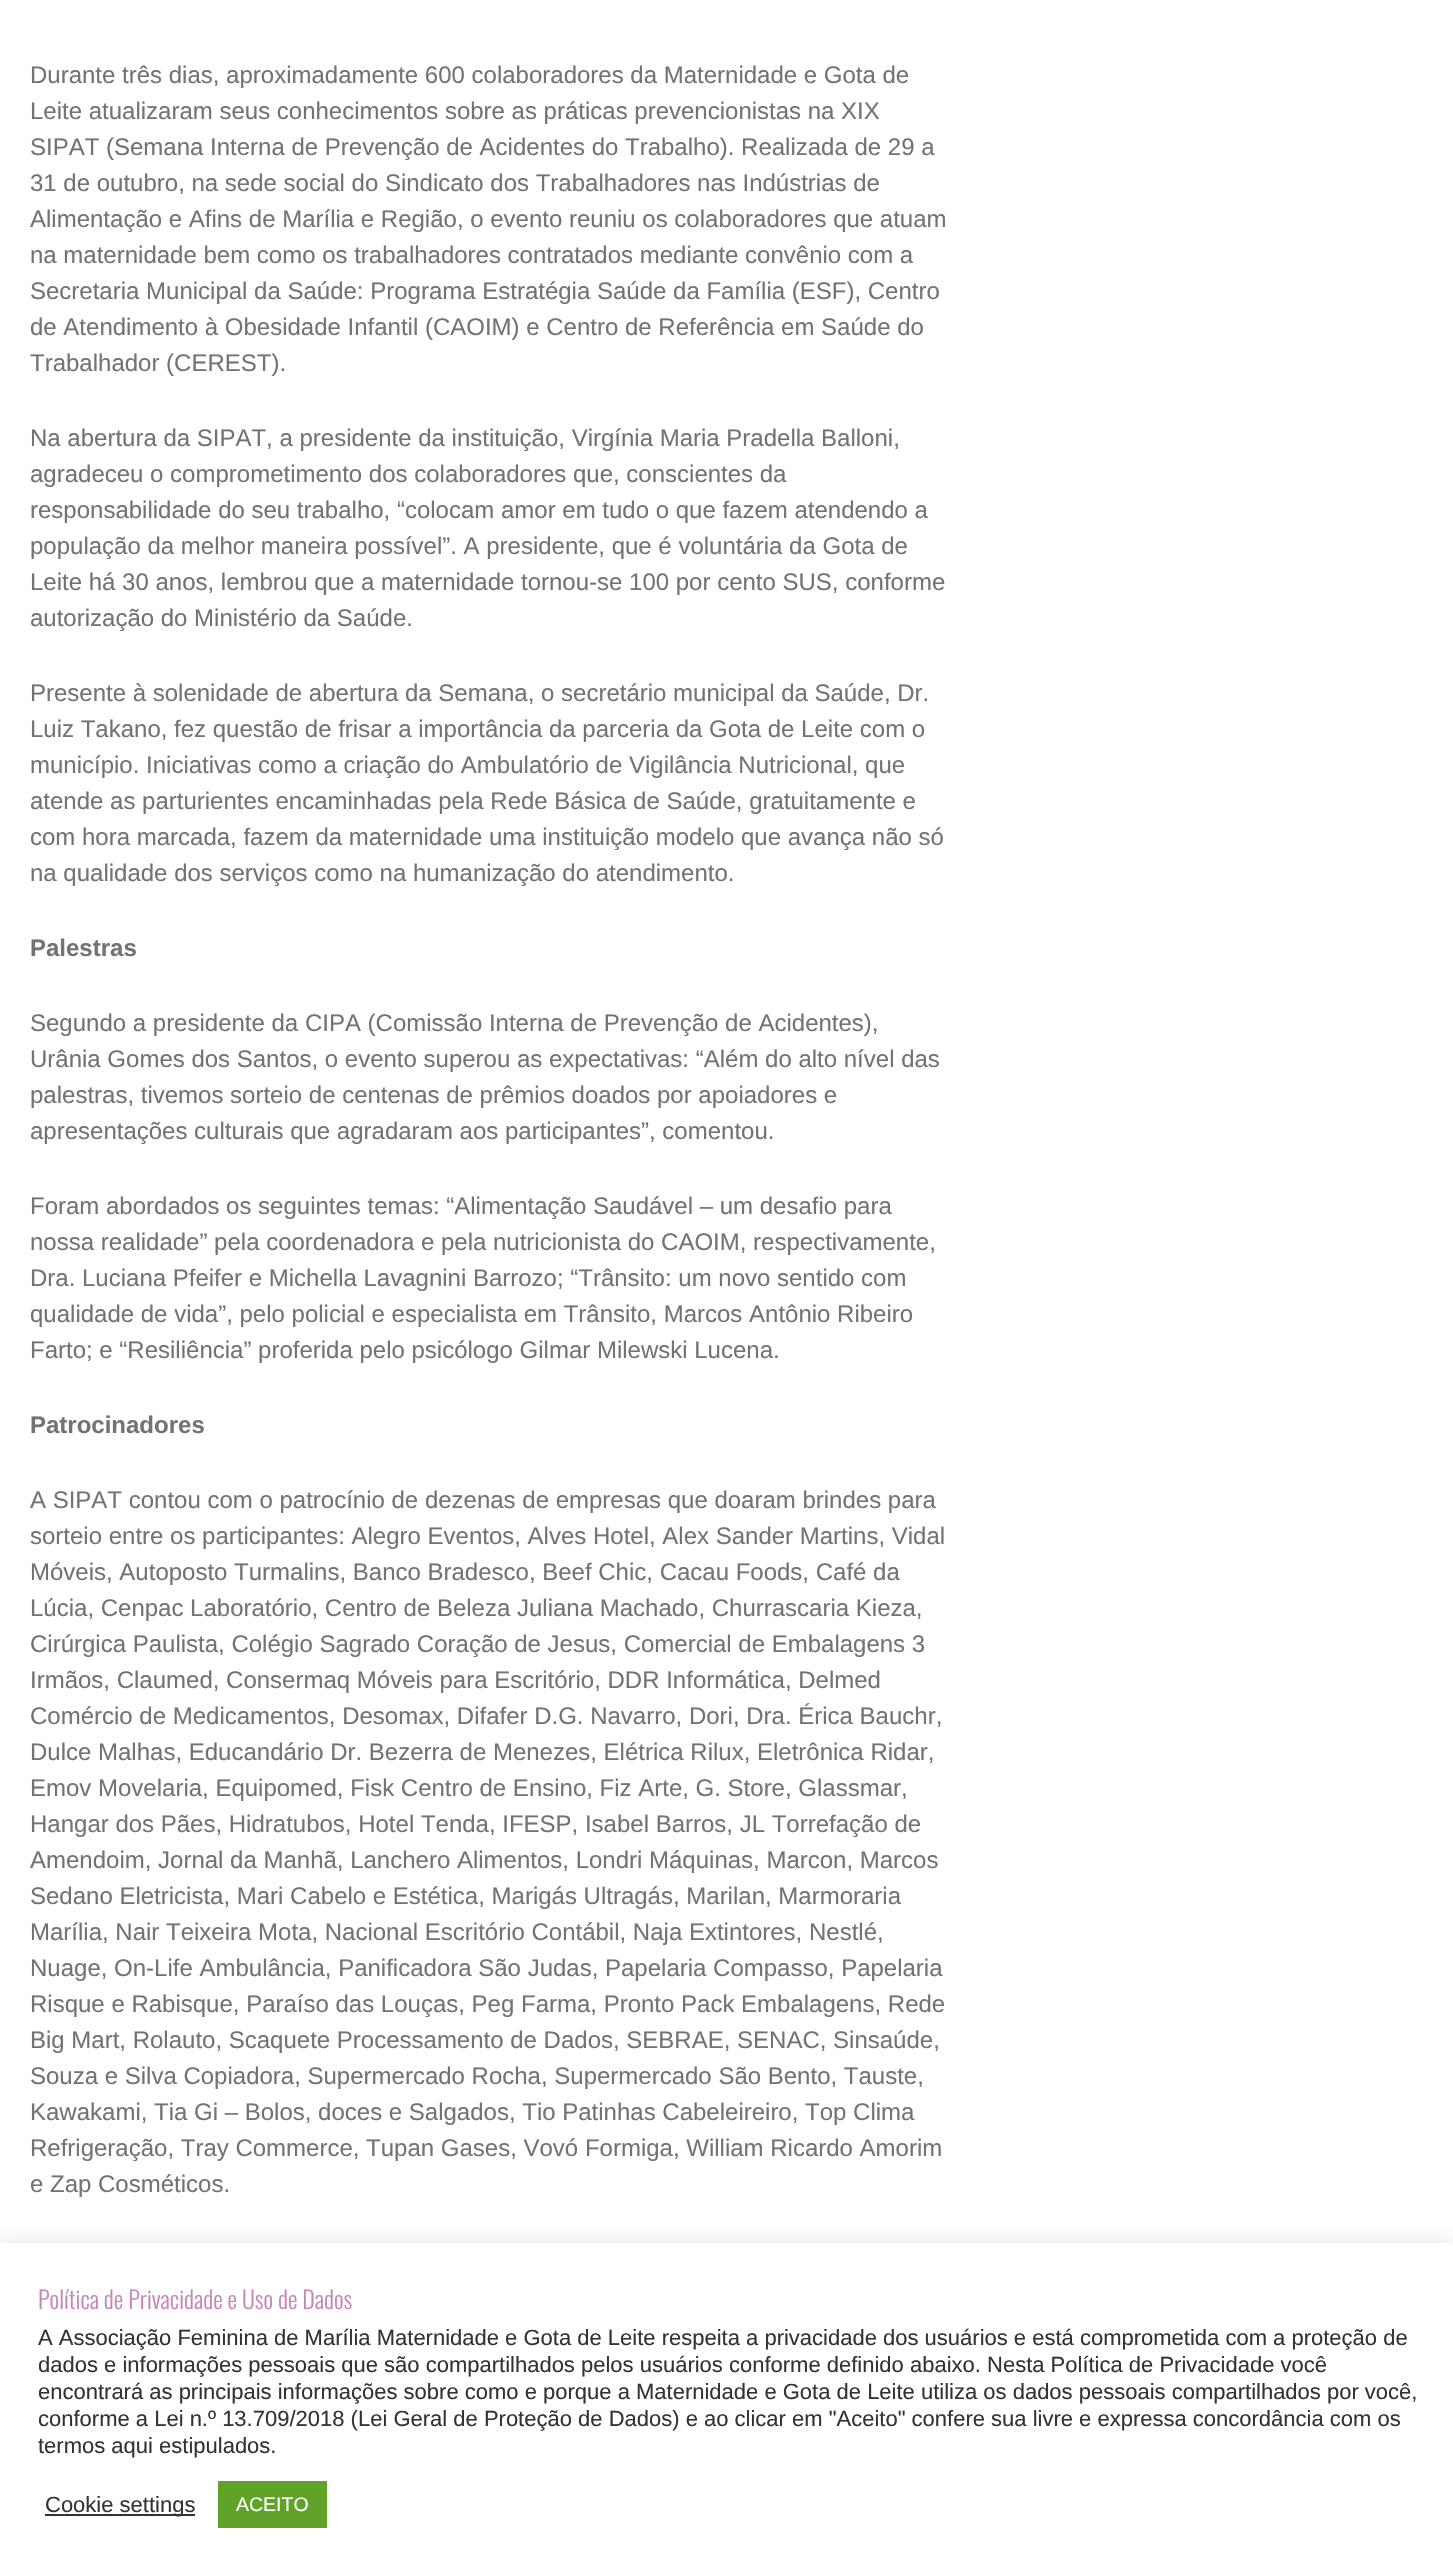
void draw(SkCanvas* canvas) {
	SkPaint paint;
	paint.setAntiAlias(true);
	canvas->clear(0xffffffff);
	SkFont f1(fontMgr->matchFamilyStyle("Liberation Sans", SkFontStyle::Normal()), 24);
	f1.setSubpixel(true);
	paint.setColor(0xff737373);
	canvas->drawString("Durante três dias, aproximadamente 600 colaboradores da Maternidade e Gota de", 30, 83, f1, paint);
	canvas->drawString("Leite atualizaram seus conhecimentos sobre as práticas prevencionistas na XIX", 30, 119, f1, paint);
	canvas->drawString("SIPAT (Semana Interna de Prevenção de Acidentes do Trabalho). Realizada de 29 a", 30, 155, f1, paint);
	canvas->drawString("31 de outubro, na sede social do Sindicato dos Trabalhadores nas Indústrias de", 30, 191, f1, paint);
	canvas->drawString("Alimentação e Afins de Marília e Região, o evento reuniu os colaboradores que atuam", 30, 227, f1, paint);
	canvas->drawString("na maternidade bem como os trabalhadores contratados mediante convênio com a", 30, 263, f1, paint);
	canvas->drawString("Secretaria Municipal da Saúde: Programa Estratégia Saúde da Família (ESF), Centro", 30, 299, f1, paint);
	canvas->drawString("de Atendimento à Obesidade Infantil (CAOIM) e Centro de Referência em Saúde do", 30, 335, f1, paint);
	canvas->drawString("Trabalhador (CEREST).", 30, 371, f1, paint);
	canvas->drawString("Na abertura da SIPAT, a presidente da instituição, Virgínia Maria Pradella Balloni,", 30, 446, f1, paint);
	canvas->drawString("agradeceu o comprometimento dos colaboradores que, conscientes da", 30, 482, f1, paint);
	canvas->drawString("responsabilidade do seu trabalho, “colocam amor em tudo o que fazem atendendo a", 30, 518, f1, paint);
	canvas->drawString("população da melhor maneira possível”. A presidente, que é voluntária da Gota de", 30, 554, f1, paint);
	canvas->drawString("Leite há 30 anos, lembrou que a maternidade tornou-se 100 por cento SUS, conforme", 30, 590, f1, paint);
	canvas->drawString("autorização do Ministério da Saúde.", 30, 626, f1, paint);
	canvas->drawString("Presente à solenidade de abertura da Semana, o secretário municipal da Saúde, Dr.", 30, 701, f1, paint);
	canvas->drawString("Luiz Takano, fez questão de frisar a importância da parceria da Gota de Leite com o", 30, 737, f1, paint);
	canvas->drawString("município. Iniciativas como a criação do Ambulatório de Vigilância Nutricional, que", 30, 773, f1, paint);
	canvas->drawString("atende as parturientes encaminhadas pela Rede Básica de Saúde, gratuitamente e", 30, 809, f1, paint);
	canvas->drawString("com hora marcada, fazem da maternidade uma instituição modelo que avança não só", 30, 845, f1, paint);
	canvas->drawString("na qualidade dos serviços como na humanização do atendimento.", 30, 881, f1, paint);
	SkFont f2(fontMgr->matchFamilyStyle("Liberation Sans", SkFontStyle::Bold()), 24);
	f2.setSubpixel(true);
	canvas->drawString("Palestras", 30, 956, f2, paint);
	canvas->drawString("Segundo a presidente da CIPA (Comissão Interna de Prevenção de Acidentes),", 30, 1031, f1, paint);
	canvas->drawString("Urânia Gomes dos Santos, o evento superou as expectativas: “Além do alto nível das", 30, 1067, f1, paint);
	canvas->drawString("palestras, tivemos sorteio de centenas de prêmios doados por apoiadores e", 30, 1103, f1, paint);
	canvas->drawString("apresentações culturais que agradaram aos participantes”, comentou.", 30, 1139, f1, paint);
	canvas->drawString("Foram abordados os seguintes temas: “Alimentação Saudável – um desafio para", 30, 1214, f1, paint);
	canvas->drawString("nossa realidade” pela coordenadora e pela nutricionista do CAOIM, respectivamente,", 30, 1250, f1, paint);
	canvas->drawString("Dra. Luciana Pfeifer e Michella Lavagnini Barrozo; “Trânsito: um novo sentido com", 30, 1286, f1, paint);
	canvas->drawString("qualidade de vida”, pelo policial e especialista em Trânsito, Marcos Antônio Ribeiro", 30, 1322, f1, paint);
	canvas->drawString("Farto; e “Resiliência” proferida pelo psicólogo Gilmar Milewski Lucena.", 30, 1358, f1, paint);
	canvas->drawString("Patrocinadores", 30, 1433, f2, paint);
	canvas->drawString("A SIPAT contou com o patrocínio de dezenas de empresas que doaram brindes para", 30, 1508, f1, paint);
	canvas->drawString("sorteio entre os participantes: Alegro Eventos, Alves Hotel, Alex Sander Martins, Vidal", 30, 1544, f1, paint);
	canvas->drawString("Móveis, Autoposto Turmalins, Banco Bradesco, Beef Chic, Cacau Foods, Café da", 30, 1580, f1, paint);
	canvas->drawString("Lúcia, Cenpac Laboratório, Centro de Beleza Juliana Machado, Churrascaria Kieza,", 30, 1616, f1, paint);
	canvas->drawString("Cirúrgica Paulista, Colégio Sagrado Coração de Jesus, Comercial de Embalagens 3", 30, 1652, f1, paint);
	canvas->drawString("Irmãos, Claumed, Consermaq Móveis para Escritório, DDR Informática, Delmed", 30, 1688, f1, paint);
	canvas->drawString("Comércio de Medicamentos, Desomax, Difafer D.G. Navarro, Dori, Dra. Érica Bauchr,", 30, 1724, f1, paint);
	canvas->drawString("Dulce Malhas, Educandário Dr. Bezerra de Menezes, Elétrica Rilux, Eletrônica Ridar,", 30, 1760, f1, paint);
	canvas->drawString("Emov Movelaria, Equipomed, Fisk Centro de Ensino, Fiz Arte, G. Store, Glassmar,", 30, 1796, f1, paint);
	canvas->drawString("Hangar dos Pães, Hidratubos, Hotel Tenda, IFESP, Isabel Barros, JL Torrefação de", 30, 1832, f1, paint);
	canvas->drawString("Amendoim, Jornal da Manhã, Lanchero Alimentos, Londri Máquinas, Marcon, Marcos", 30, 1868, f1, paint);
	canvas->drawString("Sedano Eletricista, Mari Cabelo e Estética, Marigás Ultragás, Marilan, Marmoraria", 30, 1904, f1, paint);
	canvas->drawString("Marília, Nair Teixeira Mota, Nacional Escritório Contábil, Naja Extintores, Nestlé,", 30, 1940, f1, paint);
	canvas->drawString("Nuage, On-Life Ambulância, Panificadora São Judas, Papelaria Compasso, Papelaria", 30, 1976, f1, paint);
	canvas->drawString("Risque e Rabisque, Paraíso das Louças, Peg Farma, Pronto Pack Embalagens, Rede", 30, 2012, f1, paint);
	canvas->drawString("Big Mart, Rolauto, Scaquete Processamento de Dados, SEBRAE, SENAC, Sinsaúde,", 30, 2048, f1, paint);
	canvas->drawString("Souza e Silva Copiadora, Supermercado Rocha, Supermercado São Bento, Tauste,", 30, 2084, f1, paint);
	canvas->drawString("Kawakami, Tia Gi – Bolos, doces e Salgados, Tio Patinhas Cabeleireiro, Top Clima", 30, 2120, f1, paint);
	canvas->drawString("Refrigeração, Tray Commerce, Tupan Gases, Vovó Formiga, William Ricardo Amorim", 30, 2156, f1, paint);
	canvas->drawString("e Zap Cosméticos.", 30, 2192, f1, paint);
	paint.setColor(0x4dacabab);
	paint.setMaskFilter(SkMaskFilter::MakeBlur(kNormal_SkBlurStyle, 7.5));
	canvas->drawRect(SkRect::MakeXYWH(0, 2241, 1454, 330), paint);
	paint.setMaskFilter(nullptr);
	paint.setColor(0xffffffff);
	canvas->drawRect(SkRect::MakeXYWH(0, 2243, 1453, 329), paint);
	SkFont f3(fontMgr->matchFamilyStyle("Oswald", SkFontStyle(300, SkFontStyle::kNormal_Width, SkFontStyle::kUpright_Slant)), 24);
	f3.setSubpixel(true);
	paint.setColor(0xffc785b7);
	canvas->drawString("Política de Privacidade e Uso de Dados", 38, 2309, f3, paint);
	SkFont f4(fontMgr->matchFamilyStyle("Liberation Sans", SkFontStyle::Normal()), 22);
	f4.setSubpixel(true);
	paint.setColor(0xff333333);
	canvas->drawString("A Associação Feminina de Marília Maternidade e Gota de Leite respeita a privacidade dos usuários e está comprometida com a proteção de", 38, 2345, f4, paint);
	canvas->drawString("dados e informações pessoais que são compartilhados pelos usuários conforme definido abaixo. Nesta Política de Privacidade você", 38, 2372, f4, paint);
	canvas->drawString("encontrará as principais informações sobre como e porque a Maternidade e Gota de Leite utiliza os dados pessoais compartilhados por você,", 38, 2399, f4, paint);
	canvas->drawString("conforme a Lei n.º 13.709/2018 (Lei Geral de Proteção de Dados) e ao clicar em \"Aceito\" confere sua livre e expressa concordância com os", 38, 2426, f4, paint);
	canvas->drawString("termos aqui estipulados.", 38, 2453, f4, paint);
	canvas->drawRect(SkRect::MakeXYWH(45, 2514, 150, 2), paint);
	canvas->drawString("Cookie settings", 45, 2512, f4, paint);
	paint.setColor(0xff61a229);
	canvas->drawRect(SkRect::MakeXYWH(218, 2481, 109, 47), paint);
	SkFont f5(fontMgr->matchFamilyStyle("Liberation Sans", SkFontStyle::Normal()), 19.5);
	f5.setSubpixel(true);
	paint.setColor(0xffffffff);
	canvas->drawString("ACEITO", 236, 2511, f5, paint);
}
